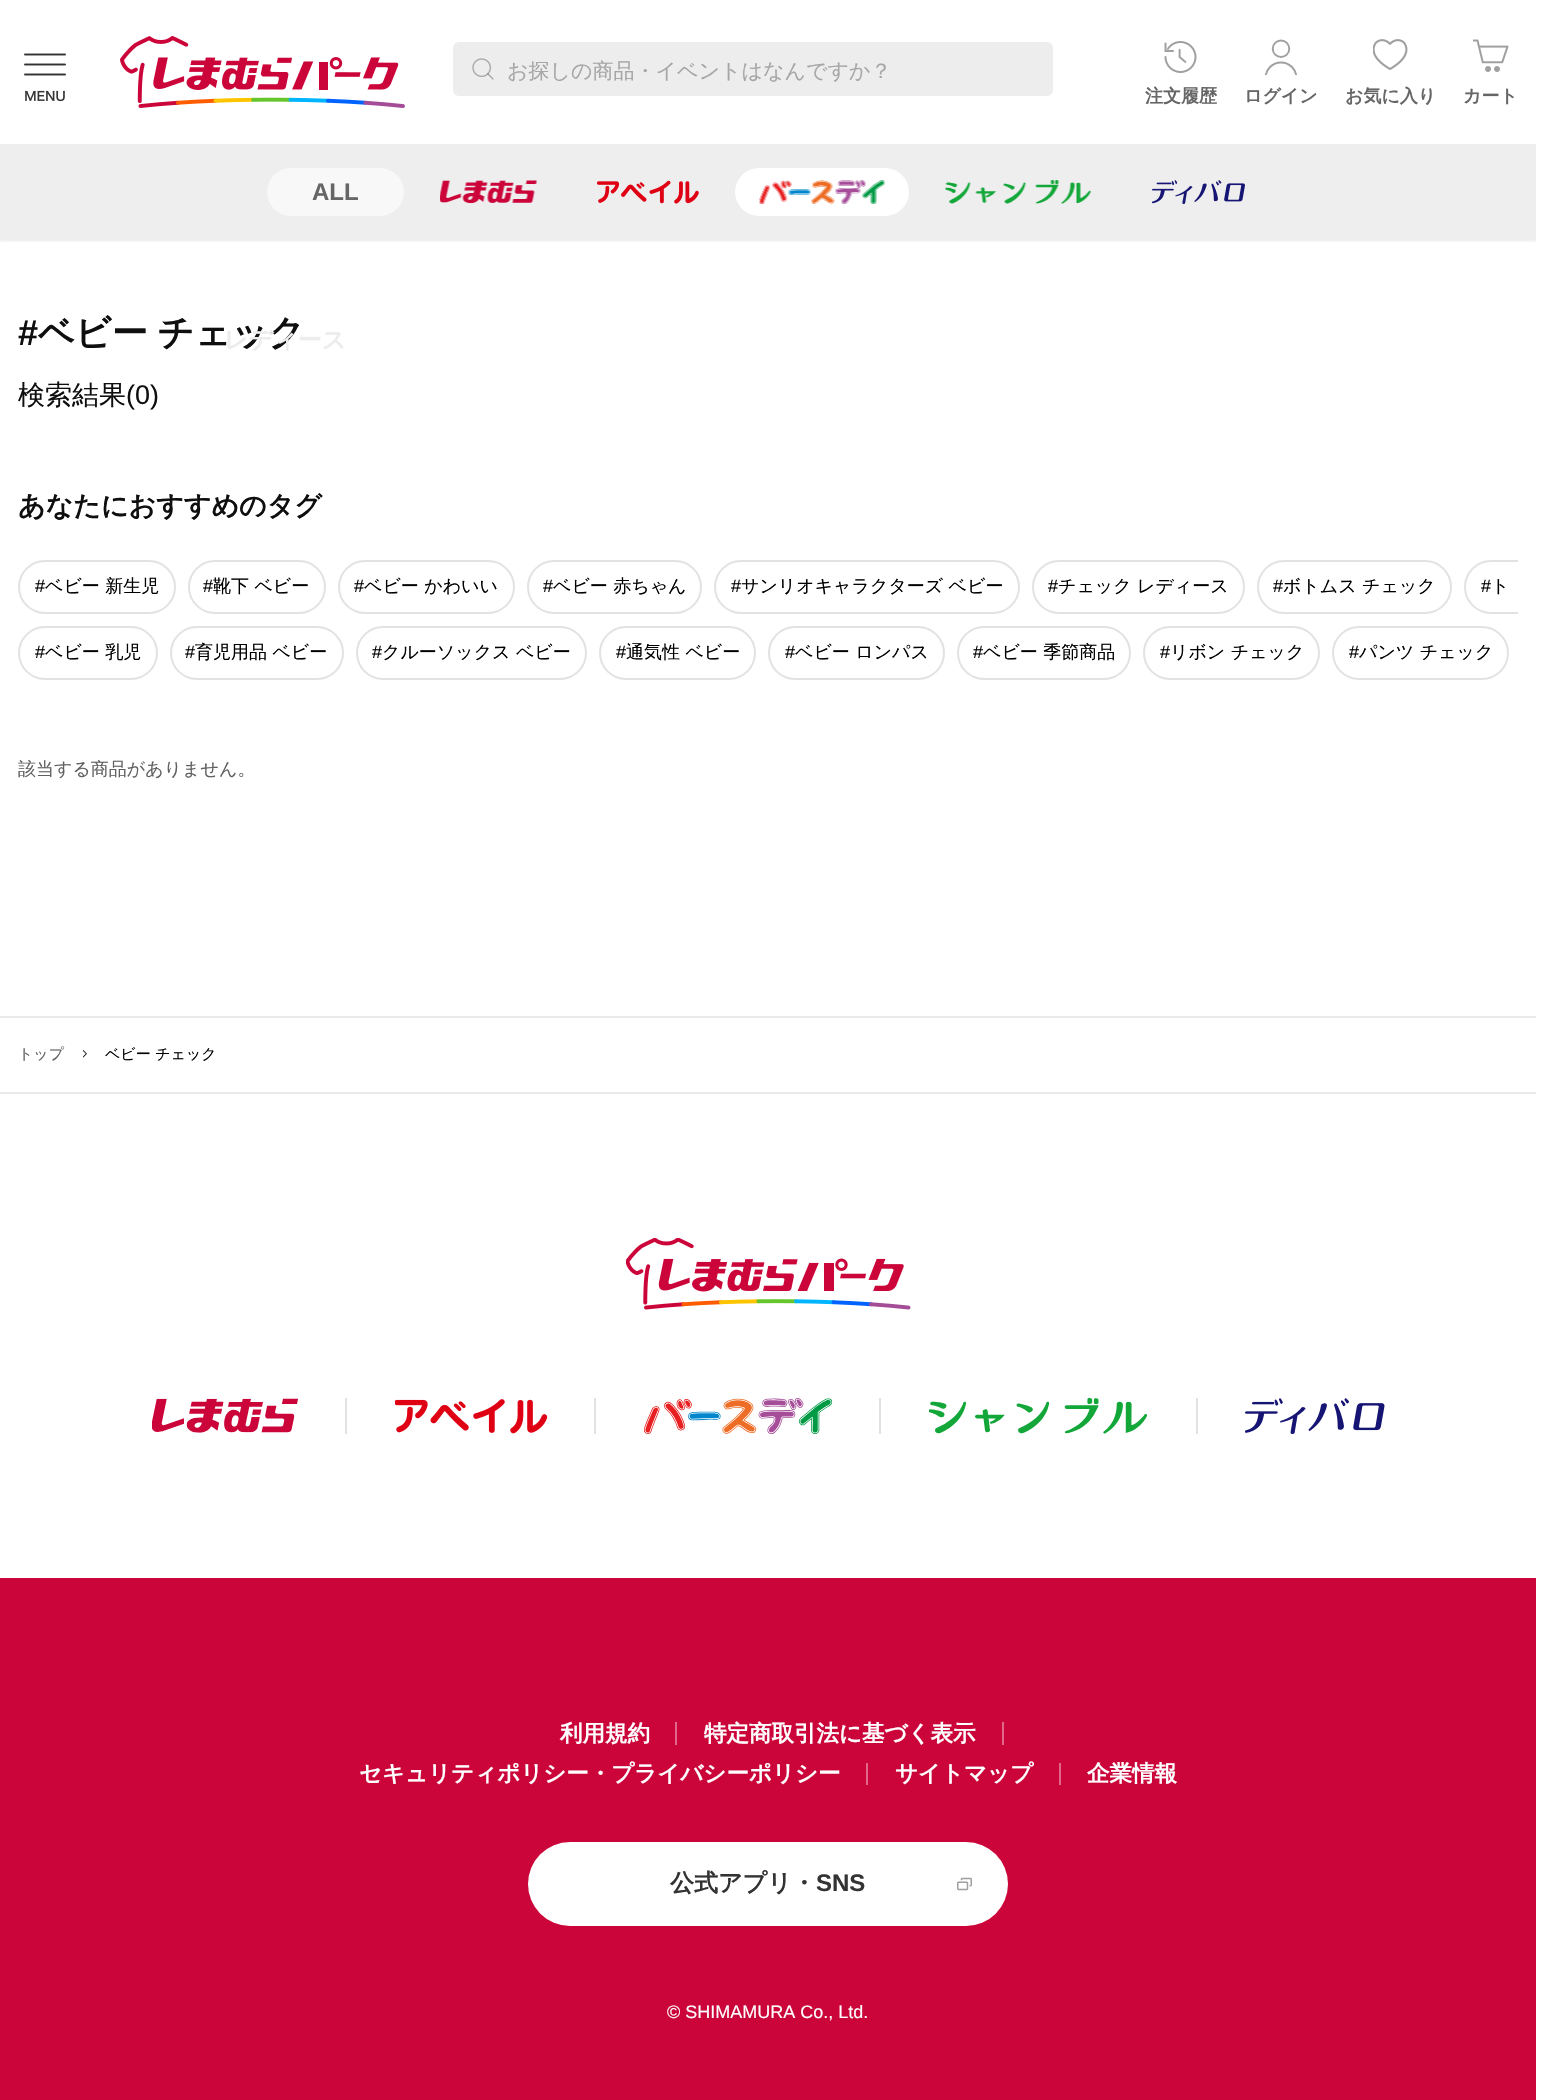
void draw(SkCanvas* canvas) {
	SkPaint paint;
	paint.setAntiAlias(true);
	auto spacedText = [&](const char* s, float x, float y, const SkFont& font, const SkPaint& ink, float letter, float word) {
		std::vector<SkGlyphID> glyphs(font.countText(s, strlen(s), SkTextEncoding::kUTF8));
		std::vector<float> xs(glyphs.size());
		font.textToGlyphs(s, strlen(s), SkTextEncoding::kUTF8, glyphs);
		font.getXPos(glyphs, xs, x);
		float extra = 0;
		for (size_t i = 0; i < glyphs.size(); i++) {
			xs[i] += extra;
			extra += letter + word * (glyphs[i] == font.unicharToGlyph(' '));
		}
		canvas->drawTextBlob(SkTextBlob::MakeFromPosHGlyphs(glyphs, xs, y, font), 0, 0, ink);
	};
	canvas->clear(0xffffffff);
	canvas->save();
	canvas->clipRect(SkRect::MakeXYWH(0, 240, 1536, 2));
	paint.setColor(0x0d000000);
	paint.setMaskFilter(SkMaskFilter::MakeBlur(kNormal_SkBlurStyle, 1));
	canvas->drawRect(SkRect::MakeXYWH(0, 2, 1536, 240), paint);
	paint.setMaskFilter(nullptr);
	canvas->restore();
	canvas->drawImageRect(SkImages::DeferredFromEncodedData(SkData::MakeFromFileName("img1.png")), SkRect::MakeXYWH(24, 53, 42, 49), SkSamplingOptions());
	canvas->drawImageRect(SkImages::DeferredFromEncodedData(SkData::MakeFromFileName("img2.png")), SkRect::MakeXYWH(120, 36, 285, 72), SkSamplingOptions());
	paint.setColor(0xffededed);
	canvas->drawRoundRect(SkRect::MakeXYWH(453, 42, 600, 54), 6, 6, paint);
	canvas->drawImageRect(SkImages::DeferredFromEncodedData(SkData::MakeFromFileName("img3.png")), SkRect::MakeXYWH(472, 58, 22, 22), SkSamplingOptions());
	SkFont f1(fontMgr->matchFamilyStyle("WenQuanYi Zen Hei", SkFontStyle(500, SkFontStyle::kNormal_Width, SkFontStyle::kUpright_Slant)), 21);
	f1.setSubpixel(true);
	paint.setColor(0xffa6a6a6);
	canvas->drawString("お探しの商品・イベントはなんですか？", 507, 78, f1, paint);
	canvas->drawImageRect(SkImages::DeferredFromEncodedData(SkData::MakeFromFileName("img4.png")), SkRect::MakeXYWH(1164, 41, 33, 32), SkSamplingOptions());
	SkFont f2(fontMgr->matchFamilyStyle("WenQuanYi Zen Hei", SkFontStyle::Bold()), 18);
	f2.setSubpixel(true);
	paint.setColor(0xff666666);
	canvas->drawString("注文履歴", 1145, 102, f2, paint);
	canvas->drawImageRect(SkImages::DeferredFromEncodedData(SkData::MakeFromFileName("img5.png")), SkRect::MakeXYWH(1264, 39, 34, 36), SkSamplingOptions());
	canvas->drawString("ログイン", 1244, 102, f2, paint);
	canvas->drawImageRect(SkImages::DeferredFromEncodedData(SkData::MakeFromFileName("img6.png")), SkRect::MakeXYWH(1373, 39, 35, 31), SkSamplingOptions());
	canvas->drawString("お気に入り", 1345, 102, f2, paint);
	canvas->drawImageRect(SkImages::DeferredFromEncodedData(SkData::MakeFromFileName("img7.png")), SkRect::MakeXYWH(1473, 39, 36, 33), SkSamplingOptions());
	canvas->drawString("カート", 1463, 102, f2, paint);
	paint.setColor(0xffeeeeee);
	canvas->drawRect(SkRect::MakeXYWH(0, 144, 1536, 96), paint);
	paint.setColor(0xfff8f8f8);
	canvas->drawRoundRect(SkRect::MakeXYWH(267, 168, 137, 48), 24, 24, paint);
	SkFont f3(fontMgr->matchFamilyStyle("Liberation Sans", SkFontStyle::Bold()), 24);
	f3.setSubpixel(true);
	paint.setColor(0xff666666);
	canvas->drawString("ALL", 312, 200, f3, paint);
	canvas->drawImageRect(SkImages::DeferredFromEncodedData(SkData::MakeFromFileName("img8.png")), SkRect::MakeXYWH(440, 180, 98, 24), SkSamplingOptions());
	canvas->drawImageRect(SkImages::DeferredFromEncodedData(SkData::MakeFromFileName("img9.png")), SkRect::MakeXYWH(597, 180, 102, 24), SkSamplingOptions());
	paint.setColor(0xffffffff);
	canvas->drawRoundRect(SkRect::MakeXYWH(735, 168, 174, 48), 24, 24, paint);
	canvas->drawImageRect(SkImages::DeferredFromEncodedData(SkData::MakeFromFileName("img10.png")), SkRect::MakeXYWH(759, 180, 127, 24), SkSamplingOptions());
	canvas->drawImageRect(SkImages::DeferredFromEncodedData(SkData::MakeFromFileName("img11.png")), SkRect::MakeXYWH(945, 180, 146, 24), SkSamplingOptions());
	canvas->drawImageRect(SkImages::DeferredFromEncodedData(SkData::MakeFromFileName("img12.png")), SkRect::MakeXYWH(1152, 180, 93, 24), SkSamplingOptions());
	SkFont f4(fontMgr->matchFamilyStyle("WenQuanYi Zen Hei", SkFontStyle::Bold()), 36);
	f4.setSubpixel(true);
	paint.setColor(0xff0f0f0f);
	spacedText("ベビー チェック", 38, 345, f4, paint, 0, -1);
	SkFont f5(fontMgr->matchFamilyStyle("WenQuanYi Zen Hei", SkFontStyle::Bold()), 24);
	f5.setSubpixel(true);
	paint.setColor(0xffececec);
	canvas->drawString("レディース", 224, 348, f5, paint);
	SkFont f6(fontMgr->matchFamilyStyle("Liberation Sans", SkFontStyle::Bold()), 36);
	f6.setSubpixel(true);
	paint.setColor(0xff0f0f0f);
	canvas->drawString("#", 18, 345, f6, paint);
	SkFont f7(fontMgr->matchFamilyStyle("WenQuanYi Zen Hei", SkFontStyle(500, SkFontStyle::kNormal_Width, SkFontStyle::kUpright_Slant)), 27);
	f7.setSubpixel(true);
	canvas->drawString("検索結果", 18, 404, f7, paint);
	SkFont f8(fontMgr->matchFamilyStyle("Liberation Sans", SkFontStyle::Normal()), 27);
	f8.setSubpixel(true);
	canvas->drawString("(0)", 126, 404, f8, paint);
	SkFont f9(fontMgr->matchFamilyStyle("WenQuanYi Zen Hei", SkFontStyle::Bold()), 27);
	f9.setSubpixel(true);
	canvas->drawString("あなたにおすすめのタグ", 18, 515, f9, paint);
	paint.setStroke(true);
	paint.setStrokeWidth(2);
	paint.setColor(0xffe2e2e2);
	canvas->drawRoundRect(SkRect::MakeXYWH(19, 561, 156, 52), 26, 26, paint);
	SkFont f10(fontMgr->matchFamilyStyle("Liberation Sans", SkFontStyle::Normal()), 18);
	f10.setSubpixel(true);
	paint.setStroke(false);
	paint.setColor(0xff000000);
	canvas->drawString("#", 35, 592, f10, paint);
	SkFont f11(fontMgr->matchFamilyStyle("WenQuanYi Zen Hei", SkFontStyle(500, SkFontStyle::kNormal_Width, SkFontStyle::kUpright_Slant)), 18);
	f11.setSubpixel(true);
	canvas->drawString("ベビー 新生児", 45, 592, f11, paint);
	paint.setStroke(true);
	paint.setColor(0xffe2e2e2);
	canvas->drawRoundRect(SkRect::MakeXYWH(189, 561, 136, 52), 26, 26, paint);
	paint.setStroke(false);
	paint.setColor(0xff000000);
	canvas->drawString("#", 203, 592, f10, paint);
	canvas->drawString("靴下 ベビー", 213, 592, f11, paint);
	paint.setStroke(true);
	paint.setColor(0xffe2e2e2);
	canvas->drawRoundRect(SkRect::MakeXYWH(339, 561, 175, 52), 26, 26, paint);
	paint.setStroke(false);
	paint.setColor(0xff000000);
	canvas->drawString("#", 354, 592, f10, paint);
	canvas->drawString("ベビー かわいい", 364, 592, f11, paint);
	paint.setStroke(true);
	paint.setColor(0xffe2e2e2);
	canvas->drawRoundRect(SkRect::MakeXYWH(528, 561, 173, 52), 26, 26, paint);
	paint.setStroke(false);
	paint.setColor(0xff000000);
	canvas->drawString("#", 543, 592, f10, paint);
	canvas->drawString("ベビー 赤ちゃん", 553, 592, f11, paint);
	paint.setStroke(true);
	paint.setColor(0xffe2e2e2);
	canvas->drawRoundRect(SkRect::MakeXYWH(715, 561, 304, 52), 26, 26, paint);
	paint.setStroke(false);
	paint.setColor(0xff000000);
	canvas->drawString("#", 731, 592, f10, paint);
	canvas->drawString("サンリオキャラクターズ ベビー", 741, 592, f11, paint);
	paint.setStroke(true);
	paint.setColor(0xffe2e2e2);
	canvas->drawRoundRect(SkRect::MakeXYWH(1033, 561, 211, 52), 26, 26, paint);
	paint.setStroke(false);
	paint.setColor(0xff000000);
	canvas->drawString("#", 1048, 592, f10, paint);
	canvas->drawString("チェック レディース", 1058, 592, f11, paint);
	paint.setStroke(true);
	paint.setColor(0xffe2e2e2);
	canvas->drawRoundRect(SkRect::MakeXYWH(1258, 561, 193, 52), 26, 26, paint);
	paint.setStroke(false);
	paint.setColor(0xff000000);
	canvas->drawString("#", 1273, 592, f10, paint);
	canvas->drawString("ボトムス チェック", 1283, 592, f11, paint);
	canvas->save();
	canvas->clipRect(SkRect::MakeXYWH(18, 560, 1500, 120));
	paint.setStroke(true);
	paint.setColor(0xffe2e2e2);
	canvas->drawRoundRect(SkRect::MakeXYWH(1465, 561, 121, 52), 26, 26, paint);
	canvas->restore();
	paint.setStroke(false);
	paint.setColor(0xff000000);
	canvas->drawString("#", 1481, 592, f10, paint);
	canvas->drawString("ト", 1491, 592, f11, paint);
	paint.setStroke(true);
	paint.setColor(0xffe2e2e2);
	canvas->drawRoundRect(SkRect::MakeXYWH(19, 627, 138, 52), 26, 26, paint);
	paint.setStroke(false);
	paint.setColor(0xff000000);
	canvas->drawString("#", 35, 658, f10, paint);
	canvas->drawString("ベビー 乳児", 45, 658, f11, paint);
	paint.setStroke(true);
	paint.setColor(0xffe2e2e2);
	canvas->drawRoundRect(SkRect::MakeXYWH(171, 627, 172, 52), 26, 26, paint);
	paint.setStroke(false);
	paint.setColor(0xff000000);
	canvas->drawString("#", 185, 658, f10, paint);
	canvas->drawString("育児用品 ベビー", 195, 658, f11, paint);
	paint.setStroke(true);
	paint.setColor(0xffe2e2e2);
	canvas->drawRoundRect(SkRect::MakeXYWH(357, 627, 229, 52), 26, 26, paint);
	paint.setStroke(false);
	paint.setColor(0xff000000);
	canvas->drawString("#", 372, 658, f10, paint);
	canvas->drawString("クルーソックス ベビー", 382, 658, f11, paint);
	paint.setStroke(true);
	paint.setColor(0xffe2e2e2);
	canvas->drawRoundRect(SkRect::MakeXYWH(600, 627, 155, 52), 26, 26, paint);
	paint.setStroke(false);
	paint.setColor(0xff000000);
	canvas->drawString("#", 616, 658, f10, paint);
	canvas->drawString("通気性 ベビー", 626, 658, f11, paint);
	paint.setStroke(true);
	paint.setColor(0xffe2e2e2);
	canvas->drawRoundRect(SkRect::MakeXYWH(769, 627, 175, 52), 26, 26, paint);
	paint.setStroke(false);
	paint.setColor(0xff000000);
	canvas->drawString("#", 785, 658, f10, paint);
	canvas->drawString("ベビー ロンパス", 795, 658, f11, paint);
	paint.setStroke(true);
	paint.setColor(0xffe2e2e2);
	canvas->drawRoundRect(SkRect::MakeXYWH(958, 627, 172, 52), 26, 26, paint);
	paint.setStroke(false);
	paint.setColor(0xff000000);
	canvas->drawString("#", 973, 658, f10, paint);
	canvas->drawString("ベビー 季節商品", 983, 658, f11, paint);
	paint.setStroke(true);
	paint.setColor(0xffe2e2e2);
	canvas->drawRoundRect(SkRect::MakeXYWH(1144, 627, 175, 52), 26, 26, paint);
	paint.setStroke(false);
	paint.setColor(0xff000000);
	canvas->drawString("#", 1160, 658, f10, paint);
	canvas->drawString("リボン チェック", 1170, 658, f11, paint);
	paint.setStroke(true);
	paint.setColor(0xffe2e2e2);
	canvas->drawRoundRect(SkRect::MakeXYWH(1333, 627, 175, 52), 26, 26, paint);
	paint.setStroke(false);
	paint.setColor(0xff000000);
	canvas->drawString("#", 1349, 658, f10, paint);
	canvas->drawString("パンツ チェック", 1359, 658, f11, paint);
	paint.setColor(0xff606060);
	canvas->drawString("該当する商品がありません。", 18, 775, f11, paint);
	paint.setColor(0xffeaeaea);
	canvas->drawRect(SkRect::MakeXYWH(0, 1016, 1536, 2), paint);
	SkFont f12(fontMgr->matchFamilyStyle("WenQuanYi Zen Hei", SkFontStyle(500, SkFontStyle::kNormal_Width, SkFontStyle::kUpright_Slant)), 15);
	f12.setSubpixel(true);
	paint.setColor(0xff606060);
	canvas->drawString("トップ", 18, 1059, f12, paint);
	canvas->drawImageRect(SkImages::DeferredFromEncodedData(SkData::MakeFromFileName("img13.png")), SkRect::MakeXYWH(83, 1050, 4, 8), SkSamplingOptions());
	paint.setColor(0xff000000);
	canvas->drawString("ベビー チェック", 105, 1059, f12, paint);
	paint.setColor(0xffeaeaea);
	canvas->drawRect(SkRect::MakeXYWH(0, 1092, 1536, 2), paint);
	canvas->drawImageRect(SkImages::DeferredFromEncodedData(SkData::MakeFromFileName("img14.png")), SkRect::MakeXYWH(626, 1238, 285, 72), SkSamplingOptions());
	canvas->drawImageRect(SkImages::DeferredFromEncodedData(SkData::MakeFromFileName("img15.png")), SkRect::MakeXYWH(152, 1398, 146, 35), SkSamplingOptions());
	paint.setColor(0xffe2e2e2);
	canvas->drawRect(SkRect::MakeXYWH(345, 1398, 2, 36), paint);
	canvas->drawImageRect(SkImages::DeferredFromEncodedData(SkData::MakeFromFileName("img16.png")), SkRect::MakeXYWH(395, 1399, 153, 35), SkSamplingOptions());
	canvas->drawRect(SkRect::MakeXYWH(594, 1398, 2, 36), paint);
	canvas->drawImageRect(SkImages::DeferredFromEncodedData(SkData::MakeFromFileName("img17.png")), SkRect::MakeXYWH(644, 1398, 189, 36), SkSamplingOptions());
	canvas->drawRect(SkRect::MakeXYWH(879, 1398, 2, 36), paint);
	canvas->drawImageRect(SkImages::DeferredFromEncodedData(SkData::MakeFromFileName("img18.png")), SkRect::MakeXYWH(929, 1398, 218, 36), SkSamplingOptions());
	canvas->drawRect(SkRect::MakeXYWH(1196, 1398, 2, 36), paint);
	canvas->drawImageRect(SkImages::DeferredFromEncodedData(SkData::MakeFromFileName("img19.png")), SkRect::MakeXYWH(1245, 1398, 140, 36), SkSamplingOptions());
	paint.setColor(0xffcb053a);
	canvas->drawRect(SkRect::MakeXYWH(0, 1578, 1536, 522), paint);
	SkFont f13(fontMgr->matchFamilyStyle("WenQuanYi Zen Hei", SkFontStyle::Bold()), 22.5);
	f13.setSubpixel(true);
	paint.setColor(0xffffffff);
	canvas->drawString("利用規約", 560, 1741, f13, paint);
	paint.setColor(0xffe06989);
	canvas->drawRect(SkRect::MakeXYWH(675, 1722, 2, 23), paint);
	paint.setColor(0xffffffff);
	canvas->drawString("特定商取引法に基づく表示", 704, 1741, f13, paint);
	paint.setColor(0xffe06989);
	canvas->drawRect(SkRect::MakeXYWH(1002, 1722, 2, 23), paint);
	paint.setColor(0xffffffff);
	canvas->drawString("セキュリティポリシー・プライバシーポリシー", 359, 1781, f13, paint);
	paint.setColor(0xffe06989);
	canvas->drawRect(SkRect::MakeXYWH(866, 1763, 2, 22), paint);
	paint.setColor(0xffffffff);
	canvas->drawString("サイトマップ", 895, 1781, f13, paint);
	paint.setColor(0xffe06989);
	canvas->drawRect(SkRect::MakeXYWH(1059, 1763, 2, 22), paint);
	paint.setColor(0xffffffff);
	canvas->drawString("企業情報", 1087, 1781, f13, paint);
	canvas->drawRoundRect(SkRect::MakeXYWH(528, 1842, 480, 84), 42, 42, paint);
	paint.setColor(0xff333333);
	canvas->drawString("公式アプリ・", 670, 1891, f5, paint);
	canvas->drawString("SNS", 816, 1891, f3, paint);
	canvas->drawImageRect(SkImages::DeferredFromEncodedData(SkData::MakeFromFileName("img20.png")), SkRect::MakeXYWH(957, 1877, 15, 14), SkSamplingOptions());
	paint.setColor(0xffffffff);
	canvas->drawString("© SHIMAMURA Co., Ltd.", 667, 2018, f10, paint);
}
